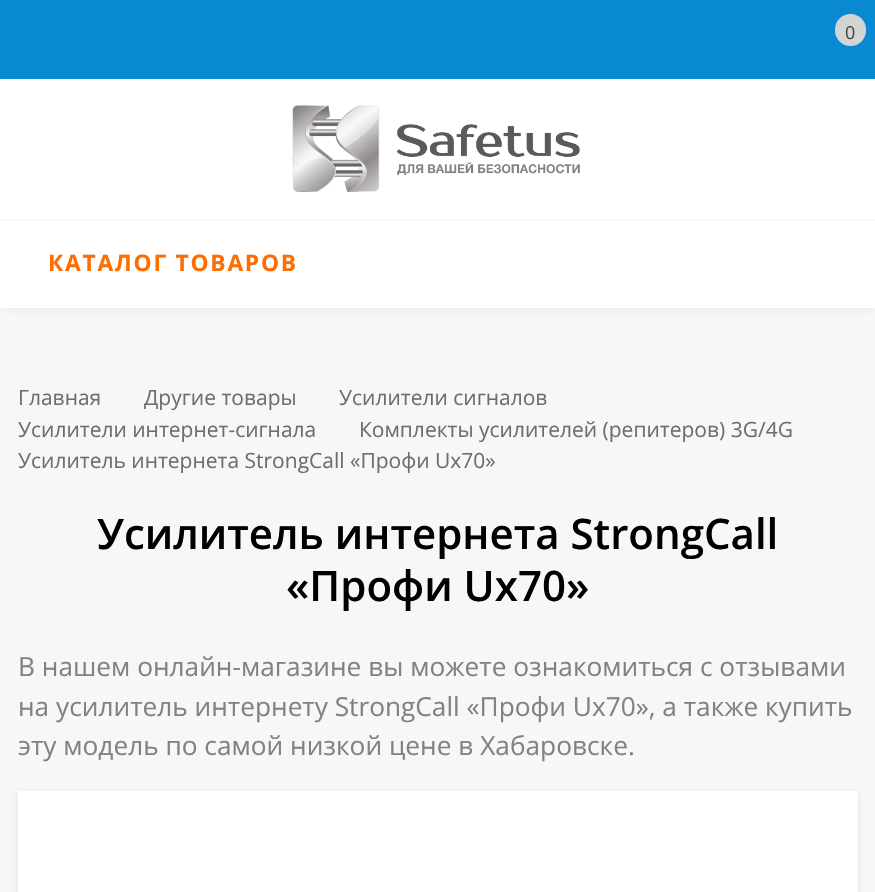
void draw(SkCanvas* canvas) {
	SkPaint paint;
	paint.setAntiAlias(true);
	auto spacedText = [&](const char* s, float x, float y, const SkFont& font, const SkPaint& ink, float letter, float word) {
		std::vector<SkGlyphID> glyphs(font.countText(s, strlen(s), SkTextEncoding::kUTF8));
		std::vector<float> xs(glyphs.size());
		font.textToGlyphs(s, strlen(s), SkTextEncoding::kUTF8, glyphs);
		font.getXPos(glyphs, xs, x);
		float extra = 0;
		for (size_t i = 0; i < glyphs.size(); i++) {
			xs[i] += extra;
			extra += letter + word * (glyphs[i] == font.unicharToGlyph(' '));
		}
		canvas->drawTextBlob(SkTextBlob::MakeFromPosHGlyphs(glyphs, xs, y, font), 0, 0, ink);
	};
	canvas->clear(0xfff7f7f7);
	paint.setColor(0x1a404040);
	paint.setMaskFilter(SkMaskFilter::MakeBlur(kNormal_SkBlurStyle, 4.5));
	canvas->drawRect(SkRect::MakeXYWH(0, 0, 875, 308), paint);
	paint.setMaskFilter(nullptr);
	paint.setColor(0xff0989d2);
	canvas->drawRect(SkRect::MakeXYWH(0, 0, 875, 79), paint);
	paint.setColor(0xffd4d4d4);
	canvas->drawRoundRect(SkRect::MakeXYWH(835, 14, 31, 32), 15.5, 15.5, paint);
	SkFont f1(fontMgr->matchFamilyStyle("Open Sans", SkFontStyle::Normal()), 18);
	f1.setSubpixel(true);
	paint.setColor(0xff4a4a4a);
	canvas->drawString("0", 845, 39, f1, paint);
	paint.setColor(0xffffffff);
	canvas->drawRect(SkRect::MakeXYWH(0, 79, 875, 140), paint);
	canvas->drawImageRect(SkImages::DeferredFromEncodedData(SkData::MakeFromFileName("img1.png")), SkRect::MakeXYWH(292, 105, 288, 87), SkSamplingOptions());
	canvas->drawRect(SkRect::MakeXYWH(0, 221, 875, 87), paint);
	paint.setColor(0xfff7f7f7);
	canvas->drawRect(SkRect::MakeXYWH(0, 219, 875, 2), paint);
	SkFont f2(fontMgr->matchFamilyStyle("Open Sans", SkFontStyle::Bold()), 22.75);
	f2.setSubpixel(true);
	paint.setColor(0xffff6c00);
	spacedText("КАТАЛОГ ТОВАРОВ", 48, 271, f2, paint, 1.75, 0);
	SkFont f3(fontMgr->matchFamilyStyle("Open Sans", SkFontStyle::Normal()), 21);
	f3.setSubpixel(true);
	paint.setColor(0xff6e6e6e);
	canvas->drawString("Главная", 18, 405, f3, paint);
	canvas->drawString("Другие товары", 144, 405, f3, paint);
	canvas->drawString("Усилители сигналов", 339, 405, f3, paint);
	canvas->drawString("Усилители интернет-сигнала", 18, 437, f3, paint);
	canvas->drawString("Комплекты усилителей (репитеров) 3G/4G", 359, 437, f3, paint);
	canvas->drawString("Усилитель интернета StrongCall «Профи Uх70»", 18, 468, f3, paint);
	SkFont f4(fontMgr->matchFamilyStyle("Open Sans", SkFontStyle(600, SkFontStyle::kNormal_Width, SkFontStyle::kUpright_Slant)), 42);
	f4.setSubpixel(true);
	paint.setColor(0xff000000);
	canvas->drawString("Усилитель интернета StrongCall", 97, 549, f4, paint);
	canvas->drawString("«Профи Uх70»", 286, 601, f4, paint);
	SkFont f5(fontMgr->matchFamilyStyle("Open Sans", SkFontStyle::Normal()), 26.25);
	f5.setSubpixel(true);
	paint.setColor(0xff828282);
	canvas->drawString("В нашем онлайн-магазине вы можете ознакомиться с отзывами", 18, 676, f5, paint);
	canvas->drawString("на усилитель интернету StrongCall «Профи Uх70», а также купить", 18, 716, f5, paint);
	canvas->drawString("эту модель по самой низкой цене в Хабаровске.", 18, 755, f5, paint);
	paint.setColor(0x1a000000);
	paint.setMaskFilter(SkMaskFilter::MakeBlur(kNormal_SkBlurStyle, 2.5));
	canvas->drawRect(SkRect::MakeXYWH(18, 793, 840, 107), paint);
	paint.setMaskFilter(nullptr);
	paint.setColor(0xffffffff);
	canvas->drawRect(SkRect::MakeXYWH(18, 791, 840, 101), paint);
}
